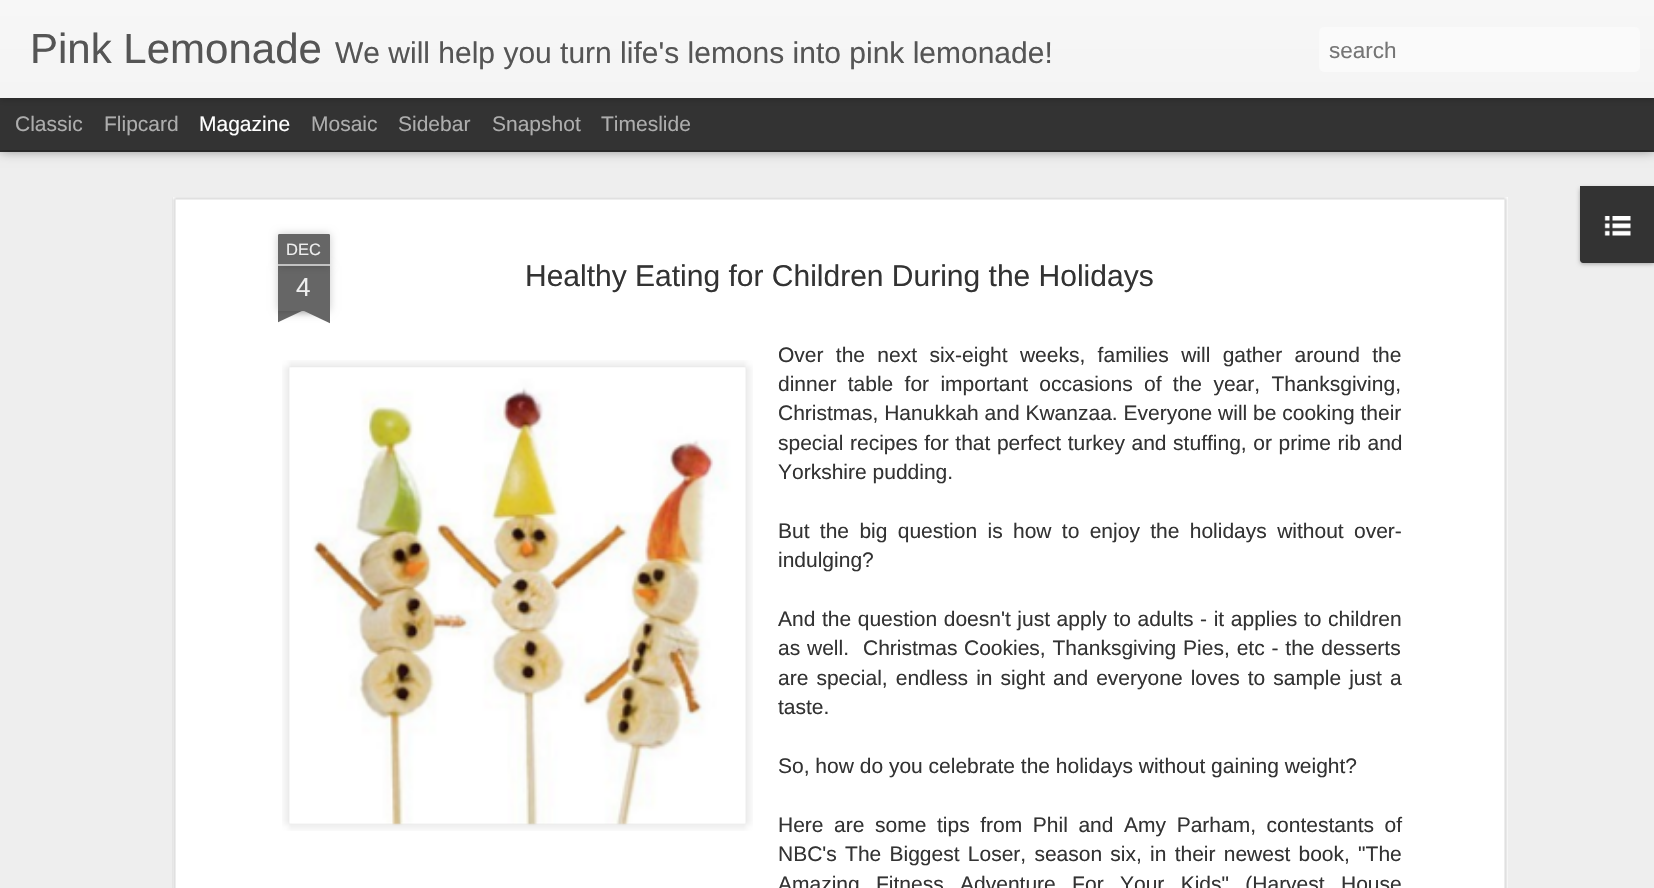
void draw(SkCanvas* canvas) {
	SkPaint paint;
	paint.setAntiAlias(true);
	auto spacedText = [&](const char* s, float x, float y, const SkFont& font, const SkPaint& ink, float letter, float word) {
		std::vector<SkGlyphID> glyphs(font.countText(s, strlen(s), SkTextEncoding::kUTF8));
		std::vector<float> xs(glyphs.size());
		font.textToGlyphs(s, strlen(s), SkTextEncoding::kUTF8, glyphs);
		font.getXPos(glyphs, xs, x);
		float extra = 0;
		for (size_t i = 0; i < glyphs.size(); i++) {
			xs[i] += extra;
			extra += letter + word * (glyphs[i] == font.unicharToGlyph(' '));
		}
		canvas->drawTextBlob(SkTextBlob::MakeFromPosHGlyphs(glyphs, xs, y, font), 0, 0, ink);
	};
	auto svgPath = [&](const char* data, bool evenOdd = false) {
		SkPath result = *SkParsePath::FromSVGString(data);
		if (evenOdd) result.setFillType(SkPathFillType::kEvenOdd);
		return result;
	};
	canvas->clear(0xff333333);
	paint.setColor(0xffeeeeee);
	canvas->drawRect(SkRect::MakeXYWH(0, 152, 1654, 736), paint);
	paint.setColor(0x80000000);
	paint.setMaskFilter(SkMaskFilter::MakeBlur(kNormal_SkBlurStyle, 6));
	canvas->drawRect(SkRect::MakeXYWH(0, 98, 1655, 52), paint);
	paint.setMaskFilter(nullptr);
	paint.setColor(0xff333333);
	canvas->drawRect(SkRect::MakeXYWH(0, 98, 1654, 52), paint);
	paint.setColor(0x4d000000);
	paint.setMaskFilter(SkMaskFilter::MakeBlur(kNormal_SkBlurStyle, 4));
	canvas->drawRect(SkRect::MakeXYWH(0, 0, 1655, 98), paint);
	paint.setMaskFilter(nullptr);
	{
		const SkColor colors[] = {0xfff7f7f7, 0xfff4f4f4};
		const float stops[] = {0, 1};
		const SkPoint ends[] = {{0, 0}, {0, 98}};
		paint.setShader(SkGradientShader::MakeLinear(ends, colors, stops, 2, SkTileMode::kClamp));
		paint.setAlpha(255);
	}
	canvas->drawRect(SkRect::MakeXYWH(0, 0, 1654, 98), paint);
	SkFont f1(fontMgr->matchFamilyStyle("Liberation Sans", SkFontStyle::Normal()), 42);
	f1.setSubpixel(true);
	paint.setShader(nullptr);
	paint.setColor(0xff555555);
	canvas->drawString("Pink Lemonade", 30, 63, f1, paint);
	SkFont f2(fontMgr->matchFamilyStyle("Liberation Sans", SkFontStyle::Normal()), 30);
	f2.setSubpixel(true);
	canvas->drawString("We will help you turn life's lemons into pink lemonade!", 335, 63, f2, paint);
	paint.setColor(0xfffafafa);
	canvas->drawRoundRect(SkRect::MakeXYWH(1319, 27, 321, 45), 5, 5, paint);
	SkFont f3(fontMgr->matchFamilyStyle("Liberation Sans", SkFontStyle::Normal()), 22.5);
	f3.setSubpixel(true);
	paint.setColor(0xff757575);
	canvas->drawString("search", 1329, 58, f3, paint);
	SkFont f4(fontMgr->matchFamilyStyle("Liberation Sans", SkFontStyle::Normal()), 21);
	f4.setSubpixel(true);
	paint.setColor(0xffadadad);
	canvas->drawString("Classic", 15, 131, f4, paint);
	canvas->drawString("Flipcard", 104, 131, f4, paint);
	paint.setColor(0xffffffff);
	canvas->drawString("Magazine", 199, 131, f4, paint);
	paint.setColor(0xffadadad);
	canvas->drawString("Mosaic", 311, 131, f4, paint);
	canvas->drawString("Sidebar", 398, 131, f4, paint);
	canvas->drawString("Snapshot", 492, 131, f4, paint);
	canvas->drawString("Timeslide", 601, 131, f4, paint);
	paint.setColor(0x4d000000);
	paint.setMaskFilter(SkMaskFilter::MakeBlur(kNormal_SkBlurStyle, 2));
	canvas->drawRoundRect(SkRect::MakeXYWH(1580, 188, 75, 76), 3, 3, paint);
	paint.setMaskFilter(nullptr);
	paint.setColor(0xff333333);
	canvas->drawPath(svgPath("M1580 186H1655V263H1583C1581.5 263 1580 261.5 1580 260Z"), paint);
	canvas->drawImageRect(SkImages::DeferredFromEncodedData(SkData::MakeFromFileName("img1.png")), SkRect::MakeXYWH(1604, 216, 27, 20), SkSamplingOptions());
	paint.setColor(0xffffffff);
	canvas->drawRect(SkRect::MakeXYWH(173, 197, 1335, 691), paint);
	canvas->drawImageRect(SkImages::DeferredFromEncodedData(SkData::MakeFromFileName("img2.png")), SkRect::MakeXYWH(172, 197, 1336, 691), SkSamplingOptions());
	paint.setColor(0x33000000);
	paint.setMaskFilter(SkMaskFilter::MakeBlur(kNormal_SkBlurStyle, 4));
	canvas->drawRect(SkRect::MakeXYWH(278, 266, 52, 45), paint);
	paint.setMaskFilter(nullptr);
	paint.setColor(0xff666666);
	canvas->drawRect(SkRect::MakeXYWH(278, 266, 52, 45), paint);
	paint.setColor(0x33000000);
	paint.setMaskFilter(SkMaskFilter::MakeBlur(kNormal_SkBlurStyle, 4));
	canvas->drawRoundRect(SkRect::MakeXYWH(278, 234, 52, 32), 1.5, 1.5, paint);
	paint.setMaskFilter(nullptr);
	paint.setColor(0xff666666);
	canvas->drawPath(svgPath("M279.5 234H328.5C329.5 234 330 234.5 330 235.5V266H278V235.5C278 234.5 278.5 234 279.5 234Z"), paint);
	paint.setColor(0xffc2c2c2);
	canvas->drawRect(SkRect::MakeXYWH(278, 264, 52, 2), paint);
	SkFont f5(fontMgr->matchFamilyStyle("Liberation Sans", SkFontStyle::Normal()), 16.5);
	f5.setSubpixel(true);
	paint.setColor(0xffeeeeee);
	canvas->drawString("DEC", 286, 255, f5, paint);
	SkFont f6(fontMgr->matchFamilyStyle("Liberation Sans", SkFontStyle::Normal()), 26);
	f6.setSubpixel(true);
	canvas->drawString("4", 296, 296, f6, paint);
	canvas->save();
	canvas->clipRect(SkRect::MakeXYWH(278, 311, 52, 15));
	paint.setColor(0x33000000);
	paint.setMaskFilter(SkMaskFilter::MakeBlur(kNormal_SkBlurStyle, 4));
	canvas->drawRect(SkRect::MakeXYWH(264, 296, 75, 15), paint);
	paint.setMaskFilter(nullptr);
	canvas->restore();
	canvas->save();
	canvas->clipRect(SkRect::MakeXYWH(278, 311, 52, 15));
	paint.setColor(0xff666666);
	canvas->drawPath(svgPath("M264 312L332 280L338 294L270 326Z"), paint);
	canvas->restore();
	canvas->save();
	canvas->clipRect(SkRect::MakeXYWH(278, 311, 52, 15));
	paint.setColor(0x33000000);
	paint.setMaskFilter(SkMaskFilter::MakeBlur(kNormal_SkBlurStyle, 4));
	canvas->drawRect(SkRect::MakeXYWH(269, 296, 75, 15), paint);
	paint.setMaskFilter(nullptr);
	canvas->restore();
	canvas->save();
	canvas->clipRect(SkRect::MakeXYWH(278, 311, 52, 15));
	paint.setColor(0xff666666);
	canvas->drawPath(svgPath("M274 280L342 312L336 326L268 294Z"), paint);
	canvas->restore();
	paint.setColor(0xff333333);
	canvas->drawString("Healthy Eating for Children During the Holidays", 525, 286, f2, paint);
	spacedText("Over the next six-eight weeks, families will gather around the", 778, 362, f4, paint, 0, 6.5);
	canvas->drawImageRect(SkImages::DeferredFromEncodedData(SkData::MakeFromFileName("img3.png")), SkRect::MakeXYWH(282, 360, 471, 471), SkSamplingOptions());
	canvas->drawImageRect(SkImages::DeferredFromEncodedData(SkData::MakeFromFileName("img4.png")), SkRect::MakeXYWH(289, 367, 457, 459), SkSamplingOptions());
	spacedText("dinner table for important occasions of the year, Thanksgiving,", 778, 391, f4, paint, 0, 5.5);
	canvas->drawString("Christmas, Hanukkah and Kwanzaa. Everyone will be cooking their", 778, 420, f4, paint);
	spacedText("special recipes for that perfect turkey and stuffing, or prime rib and", 778, 450, f4, paint, 0, 0.75);
	canvas->drawString("Yorkshire pudding.", 778, 479, f4, paint);
	spacedText("But the big question is how to enjoy the holidays without over-", 778, 538, f4, paint, 0, 4.5);
	canvas->drawString("indulging?", 778, 567, f4, paint);
	spacedText("And the question doesn't just apply to adults - it applies to children", 778, 626, f4, paint, 0, 0.75);
	spacedText("as well.", 778, 655, f4, paint, 0, 1);
	canvas->drawString("Christmas", 863, 655, f4, paint);
	spacedText("Cookies, Thanksgiving Pies, etc - the desserts", 964, 655, f4, paint, 0, 1);
	spacedText("are special, endless in sight and everyone loves to sample just a", 778, 685, f4, paint, 0, 2.25);
	canvas->drawString("taste.", 778, 714, f4, paint);
	canvas->drawString("So, how do you celebrate the holidays without gaining weight?", 778, 773, f4, paint);
	spacedText("Here are some tips from Phil and Amy Parham, contestants of", 778, 832, f4, paint, 0, 4.75);
	spacedText("NBC's The Biggest Loser, season six, in their newest book, \"The", 778, 861, f4, paint, 0, 2.4);
	spacedText("Amazing Fitness Adventure For Your Kids\" (Harvest House", 778, 891, f4, paint, 0, 10.5);
}
